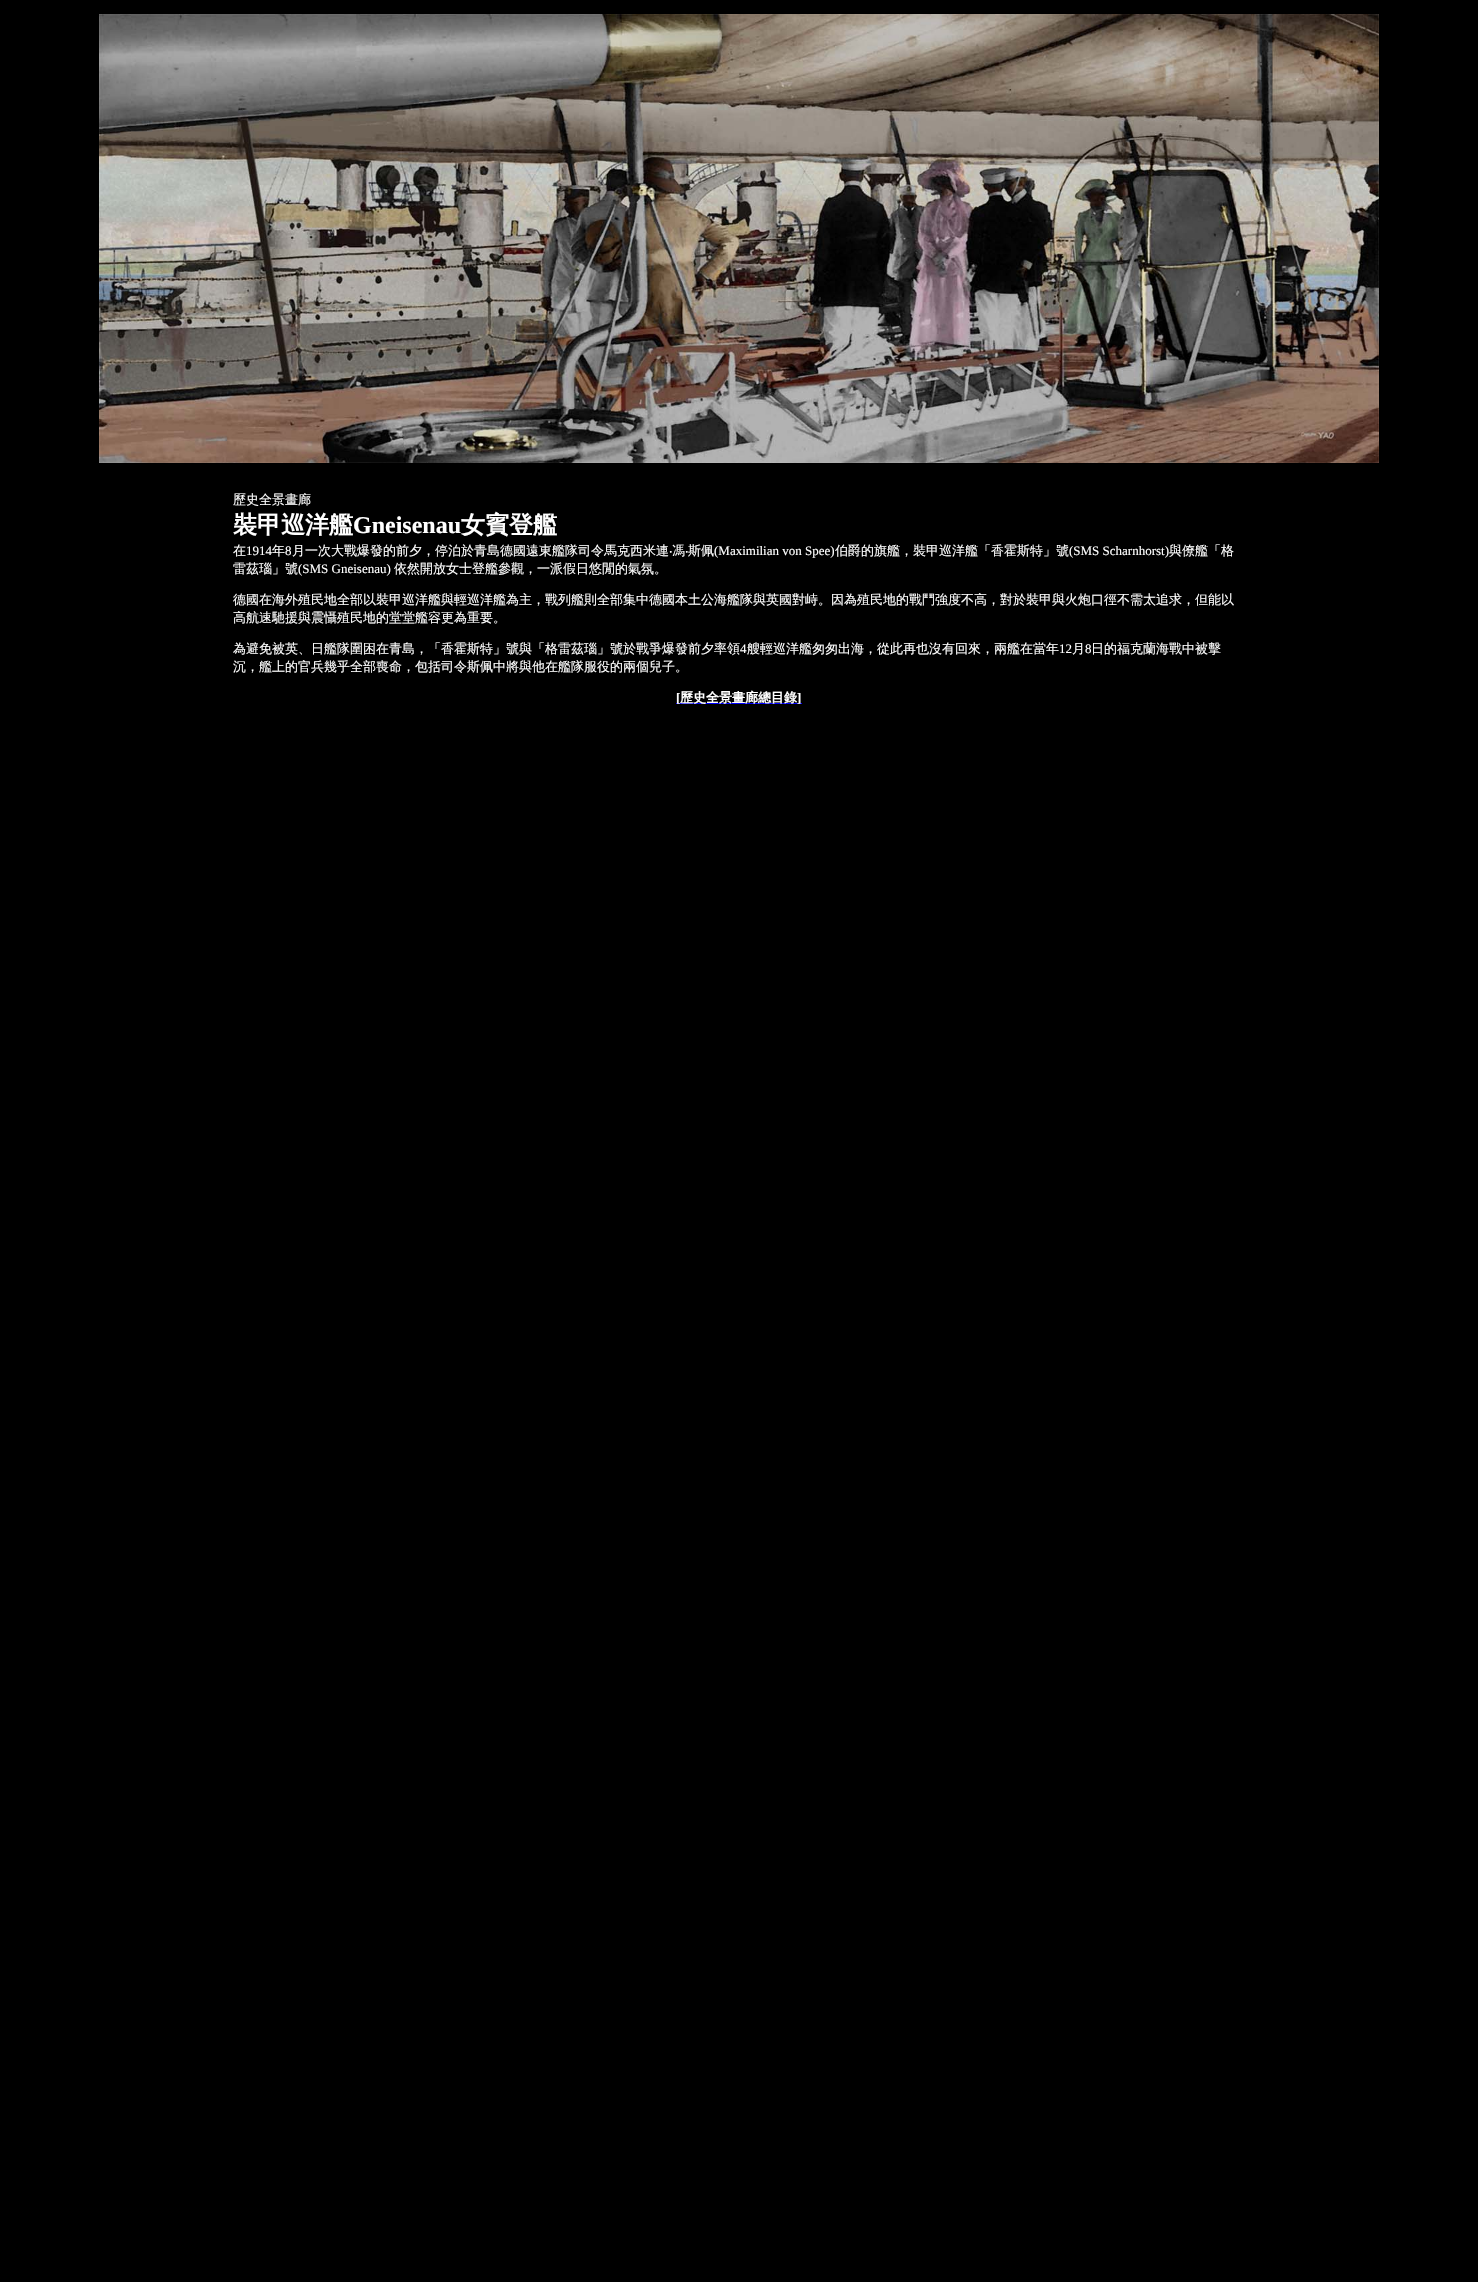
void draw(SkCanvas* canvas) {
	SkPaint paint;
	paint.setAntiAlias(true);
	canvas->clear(0xff000000);
	canvas->drawImageRect(SkImages::DeferredFromEncodedData(SkData::MakeFromFileName("img1.png")), SkRect::MakeXYWH(99, 14, 1280, 449), SkSamplingOptions());
	SkFont f1(fontMgr->matchFamilyStyle("WenQuanYi Zen Hei", SkFontStyle(500, SkFontStyle::kNormal_Width, SkFontStyle::kUpright_Slant)), 13);
	f1.setSubpixel(true);
	paint.setColor(0xffffffff);
	canvas->drawString("歷史全景畫廊", 233, 504, f1, paint);
	SkFont f2(fontMgr->matchFamilyStyle("WenQuanYi Zen Hei", SkFontStyle::Bold()), 24);
	f2.setSubpixel(true);
	canvas->drawString("裝甲巡洋艦", 233, 533, f2, paint);
	SkFont f3(fontMgr->matchFamilyStyle("Liberation Serif", SkFontStyle::Bold()), 24);
	f3.setSubpixel(true);
	canvas->drawString("Gneisenau", 353, 533, f3, paint);
	canvas->drawString("女賓登艦", 461, 533, f2, paint);
	canvas->drawString("在", 233, 555, f1, paint);
	SkFont f4(fontMgr->matchFamilyStyle("Liberation Serif", SkFontStyle::Normal()), 13);
	f4.setSubpixel(true);
	canvas->drawString("1914", 246, 555, f4, paint);
	canvas->drawString("年", 272, 555, f1, paint);
	canvas->drawString("8", 285, 555, f4, paint);
	canvas->drawString("月一次大戰爆發的前夕，停泊於青島德國遠東艦隊司令馬克西米連", 292, 555, f1, paint);
	SkFont f5(fontMgr->matchFamilyStyle("Noto Sans", SkFontStyle::Normal()), 13);
	f5.setSubpixel(true);
	canvas->drawString("‧", 669, 555, f5, paint);
	canvas->drawString("馮", 672, 555, f1, paint);
	canvas->drawString("‧", 685, 555, f5, paint);
	canvas->drawString("斯佩", 688, 555, f1, paint);
	canvas->drawString("(Maximilian von Spee)", 714, 555, f4, paint);
	canvas->drawString("伯爵的旗艦，裝甲巡洋艦「香霍斯特」號", 835, 555, f1, paint);
	canvas->drawString("(SMS Scharnhorst)", 1069, 555, f4, paint);
	canvas->drawString("與僚艦「格", 1169, 555, f1, paint);
	canvas->drawString("雷茲瑙」號", 233, 573, f1, paint);
	canvas->drawString("(SMS Gneisenau)", 298, 573, f4, paint);
	canvas->drawString("依然開放女士登艦參觀，一派假日悠閒的氣氛。", 394, 573, f1, paint);
	canvas->drawString("德國在海外殖民地全部以裝甲巡洋艦與輕巡洋艦為主，戰列艦則全部集中德國本土公海艦隊與英國對峙。因為殖民地的戰鬥強度不高，對於裝甲與火炮口徑不需太追求，但能以", 233, 604, f1, paint);
	canvas->drawString("高航速馳援與震懾殖民地的堂堂艦容更為重要。", 233, 622, f1, paint);
	canvas->drawString("為避免被英、日艦隊圍困在青島，「香霍斯特」號與「格雷茲瑙」號於戰爭爆發前夕率領", 233, 653, f1, paint);
	canvas->drawString("4", 740, 653, f4, paint);
	canvas->drawString("艘輕巡洋艦匆匆出海，從此再也沒有回來，兩艦在當年", 747, 653, f1, paint);
	canvas->drawString("12", 1059, 653, f4, paint);
	canvas->drawString("月", 1072, 653, f1, paint);
	canvas->drawString("8", 1085, 653, f4, paint);
	canvas->drawString("日的福克蘭海戰中被擊", 1091, 653, f1, paint);
	canvas->drawString("沉，艦上的官兵幾乎全部喪命，包括司令斯佩中將與他在艦隊服役的兩個兒子。", 233, 671, f1, paint);
	paint.setColor(0xff0000ff);
	canvas->drawRect(SkRect::MakeXYWH(676, 703, 126, 1), paint);
	SkFont f6(fontMgr->matchFamilyStyle("Liberation Serif", SkFontStyle::Bold()), 13);
	f6.setSubpixel(true);
	paint.setColor(0xffffffff);
	canvas->drawString("[", 676, 702, f6, paint);
	SkFont f7(fontMgr->matchFamilyStyle("WenQuanYi Zen Hei", SkFontStyle::Bold()), 13);
	f7.setSubpixel(true);
	canvas->drawString("歷史全景畫廊總目錄", 680, 702, f7, paint);
	canvas->drawString("]", 797, 702, f6, paint);
}
